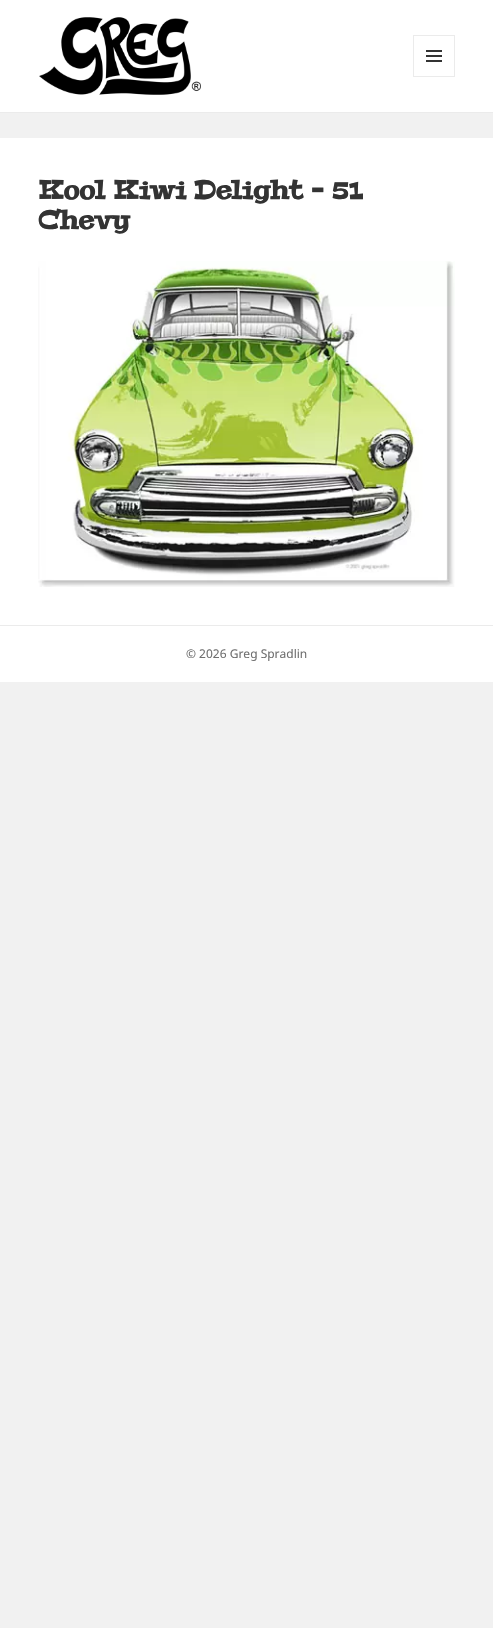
void draw(SkCanvas* canvas) {
	SkPaint paint;
	paint.setAntiAlias(true);
	canvas->clear(0xfff1f1f1);
	paint.setColor(0xffffffff);
	canvas->drawRect(SkRect::MakeXYWH(0, 0, 493, 112), paint);
	paint.setColor(0xffebebeb);
	canvas->drawRect(SkRect::MakeXYWH(0, 112, 493, 1), paint);
	canvas->drawImageRect(SkImages::DeferredFromEncodedData(SkData::MakeFromFileName("img1.png")), SkRect::MakeXYWH(39, 17, 162, 78), SkSamplingOptions());
	paint.setStroke(true);
	paint.setStrokeWidth(1);
	canvas->drawRect(SkRect::MakeXYWH(413.5, 35.5, 41, 41), paint);
	canvas->drawImageRect(SkImages::DeferredFromEncodedData(SkData::MakeFromFileName("img2.png")), SkRect::MakeXYWH(426, 50, 16, 12), SkSamplingOptions());
	paint.setStroke(false);
	paint.setColor(0xffffffff);
	canvas->drawRect(SkRect::MakeXYWH(0, 138, 493, 487), paint);
	SkFont f1(fontMgr->matchFamilyStyle("Peralta", SkFontStyle::Bold()), 26);
	f1.setSubpixel(true);
	paint.setColor(0xff333333);
	canvas->drawString("Kool Kiwi Delight – 51", 38, 199, f1, paint);
	canvas->drawString("Chevy", 38, 229, f1, paint);
	canvas->drawImageRect(SkImages::DeferredFromEncodedData(SkData::MakeFromFileName("img3.png")), SkRect::MakeXYWH(38, 261, 417, 326), SkSamplingOptions());
	paint.setColor(0xffffffff);
	canvas->drawRect(SkRect::MakeXYWH(0, 626, 493, 56), paint);
	paint.setColor(0xffebebeb);
	canvas->drawRect(SkRect::MakeXYWH(0, 625, 493, 1), paint);
	SkFont f2(fontMgr->matchFamilyStyle("Noto Sans", SkFontStyle::Normal()), 12);
	f2.setSubpixel(true);
	paint.setColor(0xff707070);
	canvas->drawString("© 2026 Greg Spradlin", 186, 658, f2, paint);
}
